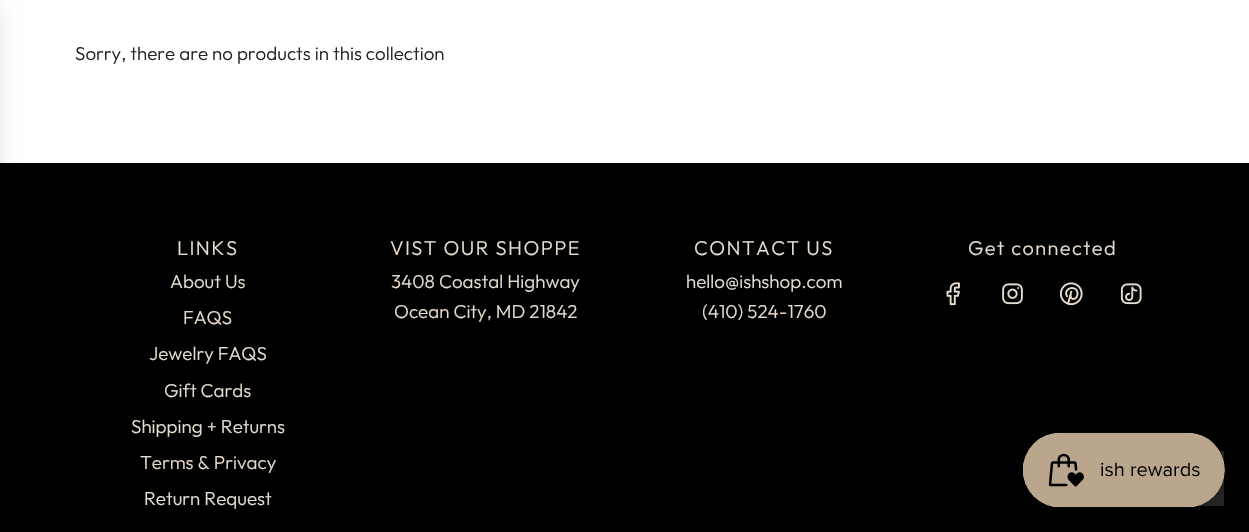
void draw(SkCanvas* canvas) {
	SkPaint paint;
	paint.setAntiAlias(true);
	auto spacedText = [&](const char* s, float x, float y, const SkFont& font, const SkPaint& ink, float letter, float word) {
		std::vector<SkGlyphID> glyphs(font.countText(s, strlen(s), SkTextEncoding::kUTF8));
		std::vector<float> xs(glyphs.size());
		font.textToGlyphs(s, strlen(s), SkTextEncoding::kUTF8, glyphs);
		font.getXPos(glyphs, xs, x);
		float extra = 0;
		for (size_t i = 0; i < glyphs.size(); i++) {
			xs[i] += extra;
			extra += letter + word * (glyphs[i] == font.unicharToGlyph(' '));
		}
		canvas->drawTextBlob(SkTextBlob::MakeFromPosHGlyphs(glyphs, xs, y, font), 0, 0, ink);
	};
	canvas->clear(0xffffffff);
	paint.setColor(0xff000000);
	canvas->drawRect(SkRect::MakeXYWH(0, 163, 1249, 369), paint);
	paint.setColor(0x1a000000);
	paint.setMaskFilter(SkMaskFilter::MakeBlur(kNormal_SkBlurStyle, 9.5));
	canvas->drawRect(SkRect::MakeXYWH(-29, 6, 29, 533), paint);
	paint.setMaskFilter(nullptr);
	SkFont f1(fontMgr->matchFamilyStyle("Outfit", SkFontStyle(300, SkFontStyle::kNormal_Width, SkFontStyle::kUpright_Slant)), 18.75);
	f1.setSubpixel(true);
	paint.setColor(0xff242424);
	canvas->drawString("Sorry, there are no products in this collection", 75, 60, f1, paint);
	SkFont f2(fontMgr->matchFamilyStyle("Outfit", SkFontStyle(300, SkFontStyle::kNormal_Width, SkFontStyle::kUpright_Slant)), 20);
	f2.setSubpixel(true);
	paint.setColor(0xffe7dccf);
	spacedText("LINKS", 177, 255, f2, paint, 1.4, 0);
	canvas->drawString("About Us", 170, 288, f1, paint);
	canvas->drawString("FAQS", 183, 324, f1, paint);
	canvas->drawString("Jewelry FAQS", 149, 360, f1, paint);
	canvas->drawString("Gift Cards", 164, 397, f1, paint);
	canvas->drawString("Shipping + Returns", 131, 433, f1, paint);
	canvas->drawString("Terms & Privacy", 140, 469, f1, paint);
	canvas->drawString("Return Request", 144, 505, f1, paint);
	spacedText("VIST OUR SHOPPE", 390, 255, f2, paint, 1.4, 0);
	canvas->drawString("3408 Coastal Highway", 391, 288, f1, paint);
	canvas->drawString("Ocean City, MD 21842", 394, 318, f1, paint);
	spacedText("CONTACT US", 694, 255, f2, paint, 1.4, 0);
	canvas->drawString("hello@ishshop.com", 686, 288, f1, paint);
	canvas->drawString("(410) 524-1760", 702, 318, f1, paint);
	spacedText("Get connected", 968, 255, f2, paint, 1.4, 0);
	canvas->drawImageRect(SkImages::DeferredFromEncodedData(SkData::MakeFromFileName("img1.png")), SkRect::MakeXYWH(946, 282, 14, 24), SkSamplingOptions());
	canvas->drawImageRect(SkImages::DeferredFromEncodedData(SkData::MakeFromFileName("img2.png")), SkRect::MakeXYWH(1002, 283, 21, 22), SkSamplingOptions());
	canvas->drawImageRect(SkImages::DeferredFromEncodedData(SkData::MakeFromFileName("img3.png")), SkRect::MakeXYWH(1059, 282, 24, 24), SkSamplingOptions());
	canvas->drawImageRect(SkImages::DeferredFromEncodedData(SkData::MakeFromFileName("img4.png")), SkRect::MakeXYWH(1120, 283, 22, 22), SkSamplingOptions());
	paint.setColor(0xff242424);
	canvas->drawRect(SkRect::MakeXYWH(1197, 451, 27, 55), paint);
	canvas->drawImageRect(SkImages::DeferredFromEncodedData(SkData::MakeFromFileName("img5.png")), SkRect::MakeXYWH(1022, 432, 203, 76), SkSamplingOptions());
}
